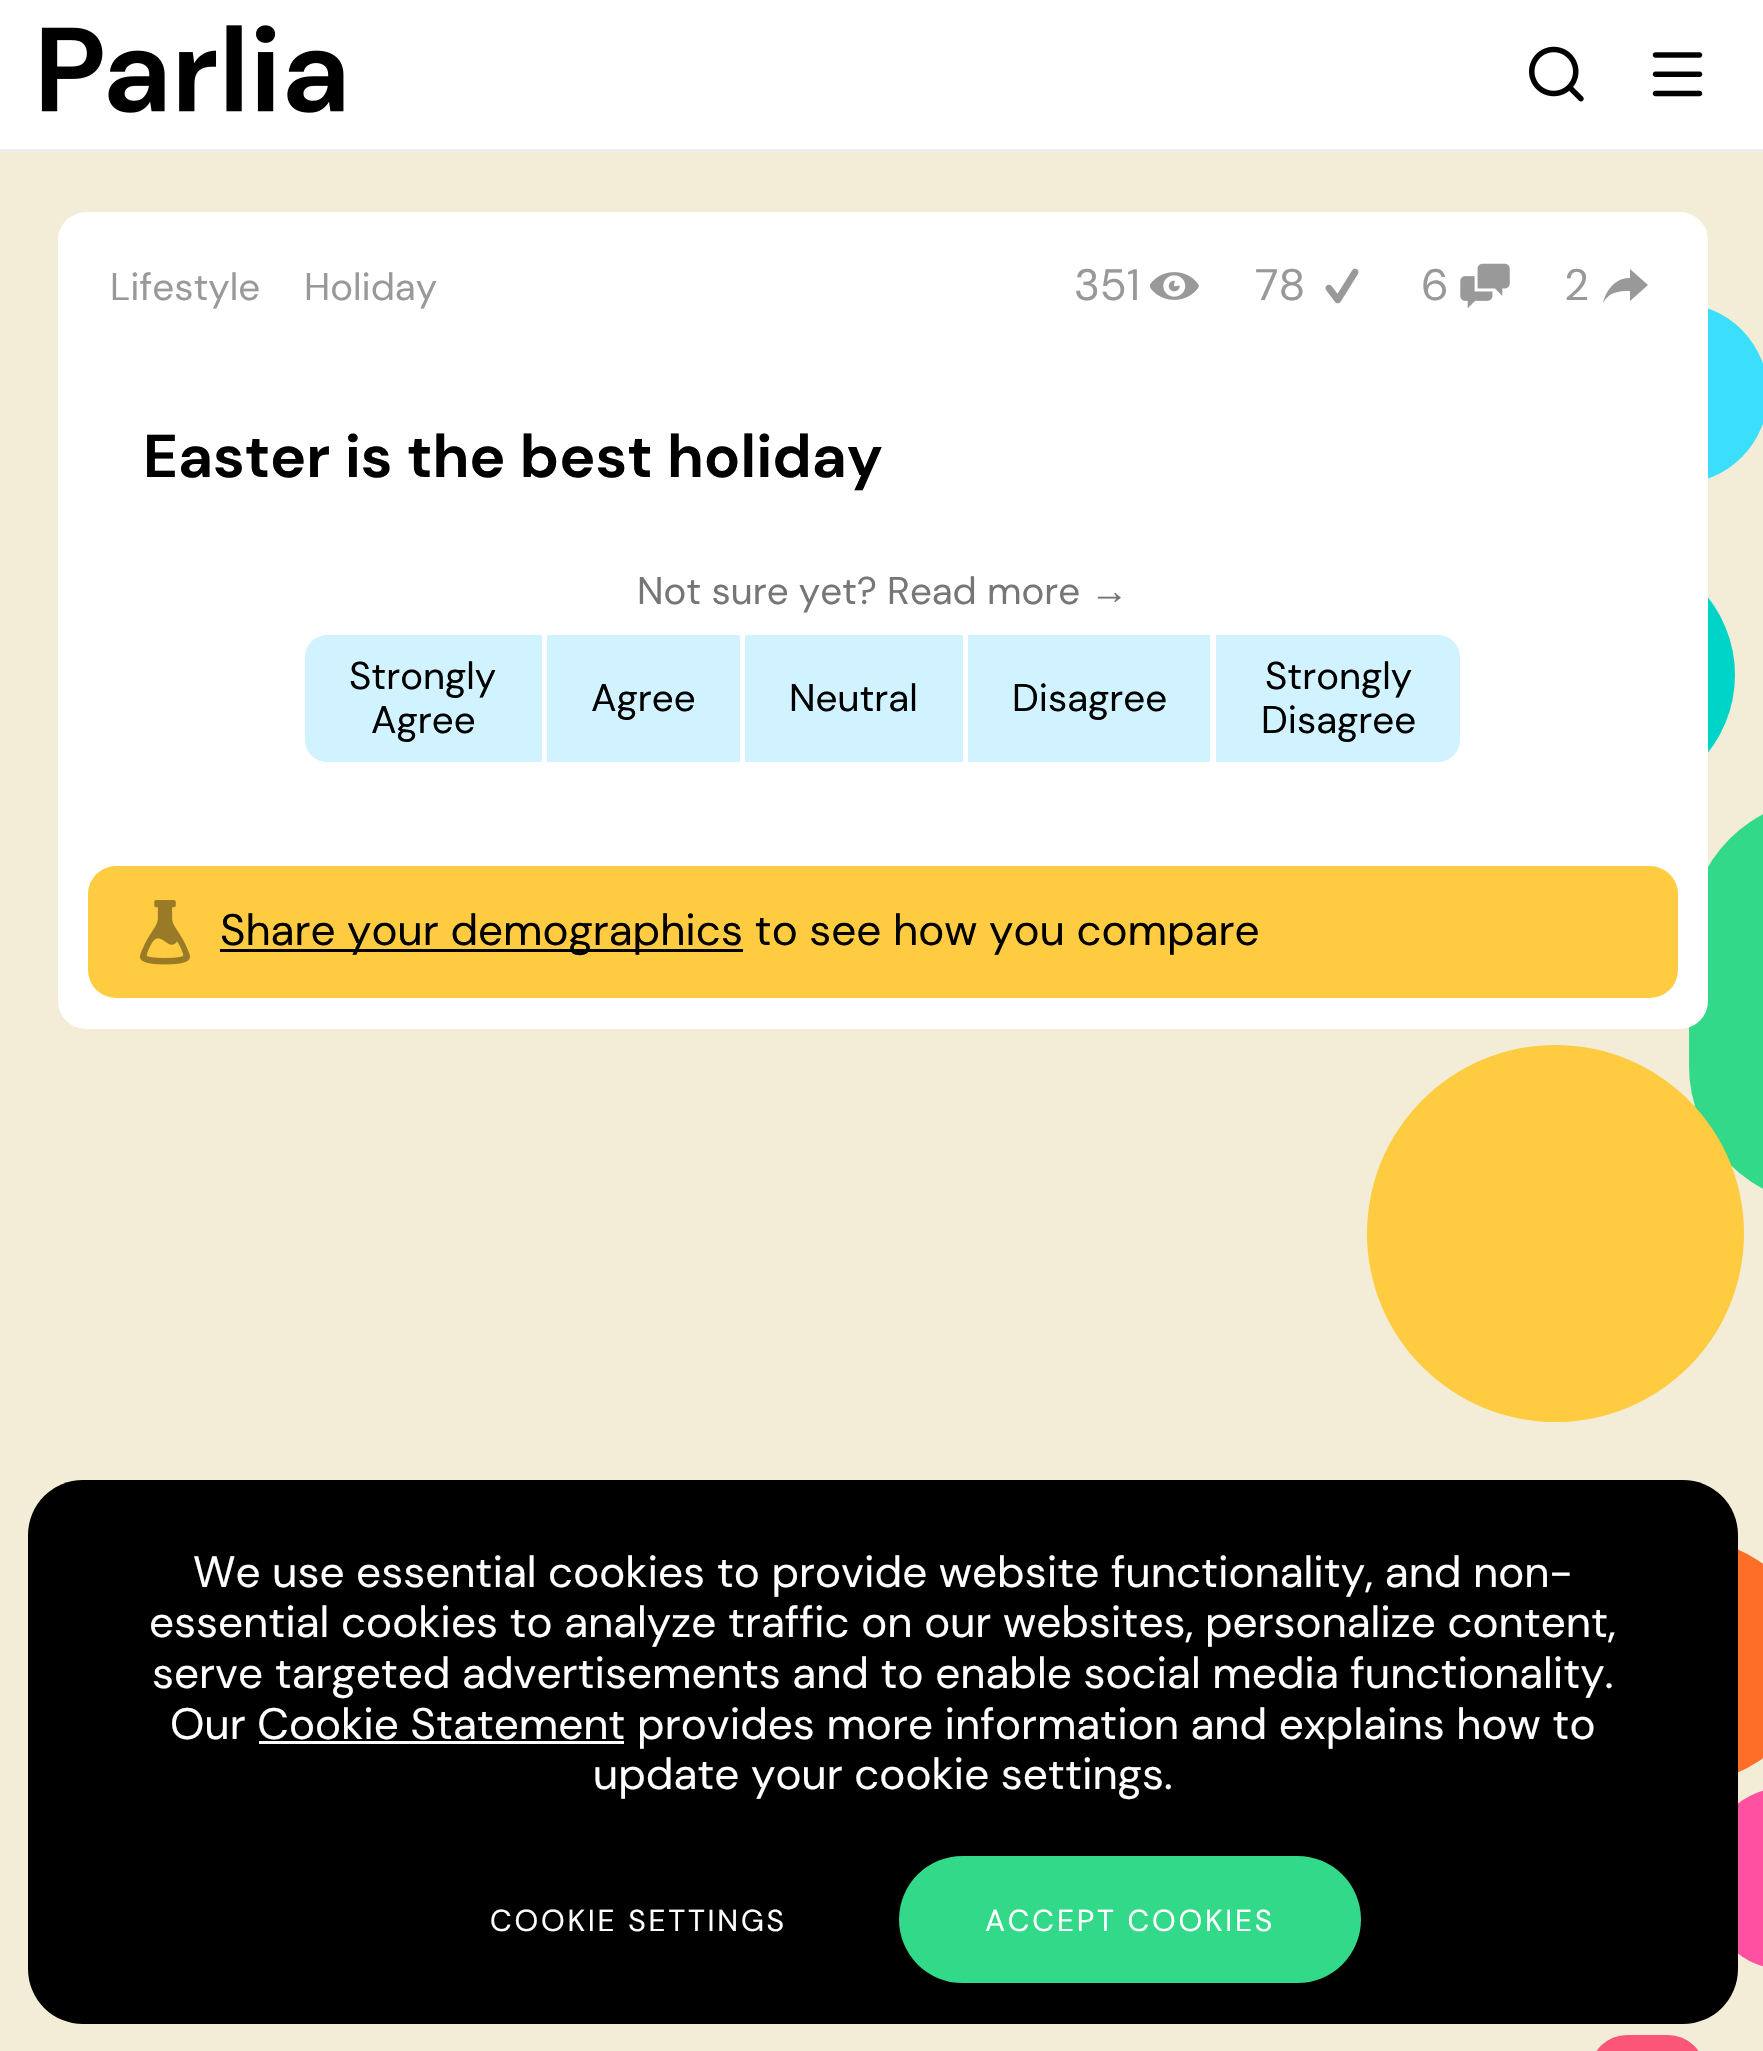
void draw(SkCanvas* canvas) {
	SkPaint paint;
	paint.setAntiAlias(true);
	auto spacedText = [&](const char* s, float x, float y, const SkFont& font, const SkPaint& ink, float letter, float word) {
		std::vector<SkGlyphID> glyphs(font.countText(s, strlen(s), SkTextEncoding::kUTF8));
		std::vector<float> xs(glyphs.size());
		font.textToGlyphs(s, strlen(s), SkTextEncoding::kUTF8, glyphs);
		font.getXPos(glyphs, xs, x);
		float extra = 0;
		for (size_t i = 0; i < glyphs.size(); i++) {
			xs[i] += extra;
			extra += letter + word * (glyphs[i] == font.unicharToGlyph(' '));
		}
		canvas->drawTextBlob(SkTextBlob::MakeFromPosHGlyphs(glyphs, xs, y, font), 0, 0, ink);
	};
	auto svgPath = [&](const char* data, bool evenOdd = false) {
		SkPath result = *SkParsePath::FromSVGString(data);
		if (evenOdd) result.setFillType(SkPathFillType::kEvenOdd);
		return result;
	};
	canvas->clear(0xfff3edd8);
	paint.setColor(0xffffffff);
	canvas->drawRect(SkRect::MakeXYWH(0, 0, 1763, 149), paint);
	paint.setColor(0xffeeeeee);
	canvas->drawRect(SkRect::MakeXYWH(0, 149, 1763, 3), paint);
	canvas->drawImageRect(SkImages::DeferredFromEncodedData(SkData::MakeFromFileName("img1.png")), SkRect::MakeXYWH(41, 25, 303, 88), SkSamplingOptions());
	canvas->drawImageRect(SkImages::DeferredFromEncodedData(SkData::MakeFromFileName("img2.png")), SkRect::MakeXYWH(1529, 46, 55, 56), SkSamplingOptions());
	canvas->drawImageRect(SkImages::DeferredFromEncodedData(SkData::MakeFromFileName("img3.png")), SkRect::MakeXYWH(1652, 52, 51, 45), SkSamplingOptions());
	paint.setColor(0xff3bdefb);
	canvas->drawCircle(1677.5, 393.5, 90.5, paint);
	paint.setColor(0xff00d4c8);
	canvas->drawCircle(1610, 675, 125, paint);
	paint.setColor(0xff32d988);
	canvas->drawRoundRect(SkRect::MakeXYWH(1689, 798, 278, 407), 203.5, 203.5, paint);
	paint.setColor(0xffffffff);
	canvas->drawRoundRect(SkRect::MakeXYWH(58, 212, 1650, 817), 28, 28, paint);
	SkFont f1(fontMgr->matchFamilyStyle("DM Sans", SkFontStyle::Normal()), 38.5);
	f1.setSubpixel(true);
	paint.setColor(0xff999999);
	canvas->drawString("Lifestyle", 110, 300, f1, paint);
	canvas->drawString("Holiday", 304, 300, f1, paint);
	SkFont f2(fontMgr->matchFamilyStyle("DM Sans", SkFontStyle::Normal()), 44);
	f2.setSubpixel(true);
	canvas->drawString("351", 1074, 300, f2, paint);
	canvas->drawImageRect(SkImages::DeferredFromEncodedData(SkData::MakeFromFileName("img4.png")), SkRect::MakeXYWH(1150, 272, 49, 28), SkSamplingOptions());
	canvas->drawString("78", 1255, 300, f2, paint);
	canvas->drawImageRect(SkImages::DeferredFromEncodedData(SkData::MakeFromFileName("img5.png")), SkRect::MakeXYWH(1325, 268, 34, 36), SkSamplingOptions());
	canvas->drawString("6", 1421, 300, f2, paint);
	canvas->drawImageRect(SkImages::DeferredFromEncodedData(SkData::MakeFromFileName("img6.png")), SkRect::MakeXYWH(1460, 263, 50, 45), SkSamplingOptions());
	canvas->drawString("2", 1564, 300, f2, paint);
	canvas->drawPath(svgPath("M1630 291V301L1648 285L1630 269V278C1608 278 1603 303 1603 303C1609 292 1618 291 1630 291Z"), paint);
	SkFont f3(fontMgr->matchFamilyStyle("DM Sans", SkFontStyle::Bold()), 60.5);
	f3.setSubpixel(true);
	paint.setColor(0xff000000);
	canvas->drawString("Easter is the best holiday", 143, 477, f3, paint);
	paint.setColor(0xff767676);
	canvas->drawString("Not sure yet? Read more", 637, 604, f1, paint);
	SkFont f4(fontMgr->matchFamilyStyle("Liberation Sans", SkFontStyle::Normal()), 38.5);
	f4.setSubpixel(true);
	canvas->drawString("→", 1090, 604, f4, paint);
	paint.setColor(0xffd1f3ff);
	canvas->drawPath(svgPath("M327 635H542V762H327C315 762 305 752 305 740V657C305 645 315 635 327 635Z"), paint);
	paint.setColor(0xff000000);
	canvas->drawString("Strongly", 349, 689, f1, paint);
	canvas->drawString("Agree", 371, 733, f1, paint);
	paint.setColor(0xffd1f3ff);
	canvas->drawRect(SkRect::MakeXYWH(547, 635, 193, 127), paint);
	paint.setColor(0xff000000);
	canvas->drawString("Agree", 591, 711, f1, paint);
	paint.setColor(0xffd1f3ff);
	canvas->drawRect(SkRect::MakeXYWH(745, 635, 218, 127), paint);
	paint.setColor(0xff000000);
	canvas->drawString("Neutral", 789, 711, f1, paint);
	paint.setColor(0xffd1f3ff);
	canvas->drawRect(SkRect::MakeXYWH(968, 635, 242, 127), paint);
	paint.setColor(0xff000000);
	canvas->drawString("Disagree", 1012, 711, f1, paint);
	paint.setColor(0xffd1f3ff);
	canvas->drawPath(svgPath("M1216 635H1438C1450 635 1460 645 1460 657V740C1460 752 1450 762 1438 762H1216Z"), paint);
	paint.setColor(0xff000000);
	canvas->drawString("Strongly", 1265, 689, f1, paint);
	canvas->drawString("Disagree", 1261, 733, f1, paint);
	paint.setColor(0xffffcb40);
	canvas->drawRoundRect(SkRect::MakeXYWH(88, 866, 1590, 132), 28, 28, paint);
	canvas->drawImageRect(SkImages::DeferredFromEncodedData(SkData::MakeFromFileName("img7.png")), SkRect::MakeXYWH(140, 900, 50, 65), SkSamplingOptions());
	paint.setColor(0xff000000);
	canvas->drawRect(SkRect::MakeXYWH(220, 949, 523, 3), paint);
	canvas->drawString("Share your demographics to see how you compare", 220, 945, f2, paint);
	paint.setColor(0xffffcb40);
	canvas->drawCircle(1555.5, 1233.5, 188.5, paint);
	paint.setColor(0xffff6e29);
	canvas->drawCircle(1691, 1661, 121, paint);
	paint.setColor(0xffff50a2);
	canvas->drawRoundRect(SkRect::MakeXYWH(1711, 1788, 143, 181), 90.5, 90.5, paint);
	paint.setColor(0xfffb5577);
	canvas->drawRoundRect(SkRect::MakeXYWH(1590, 2035, 115, 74), 57.5, 57.5, paint);
	paint.setColor(0xff000000);
	canvas->drawRoundRect(SkRect::MakeXYWH(28, 1480, 1710, 544), 55, 55, paint);
	paint.setColor(0xffffffff);
	canvas->drawString("We use essential cookies to provide website functionality, and non-", 193, 1587, f2, paint);
	canvas->drawString("essential cookies to analyze traffic on our websites, personalize content,", 149, 1637, f2, paint);
	canvas->drawString("serve targeted advertisements and to enable social media functionality.", 152, 1688, f2, paint);
	canvas->drawString("Our Cookie Statement provides more information and explains how to", 170, 1739, f2, paint);
	canvas->drawRect(SkRect::MakeXYWH(259, 1741, 365, 3), paint);
	canvas->drawString("update your cookie settings.", 593, 1789, f2, paint);
	SkFont f5(fontMgr->matchFamilyStyle("DM Sans", SkFontStyle::Normal()), 30.25);
	f5.setSubpixel(true);
	spacedText("COOKIE SETTINGS", 490, 1931, f5, paint, 2.75, 0);
	paint.setColor(0xff32d988);
	canvas->drawRoundRect(SkRect::MakeXYWH(899, 1856, 462, 127), 63.5, 63.5, paint);
	paint.setColor(0xffffffff);
	spacedText("ACCEPT COOKIES", 985, 1931, f5, paint, 2.75, 0);
}
